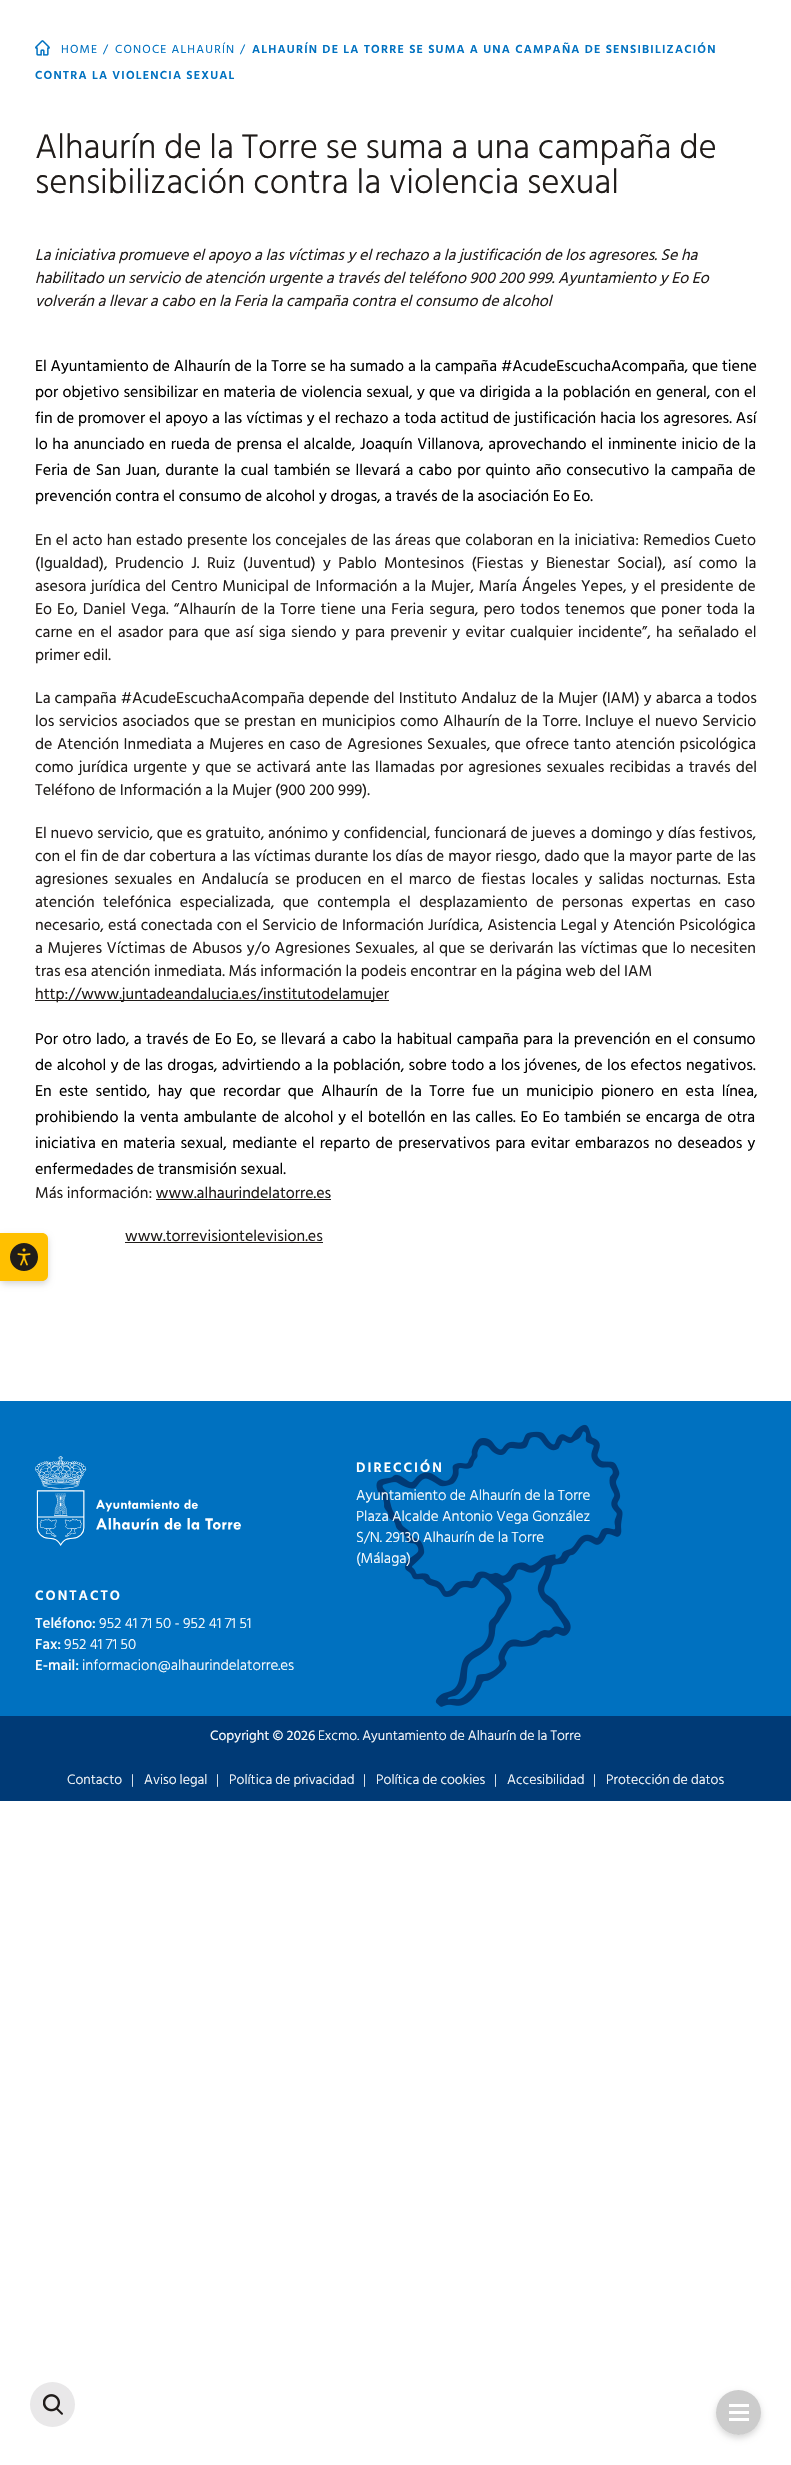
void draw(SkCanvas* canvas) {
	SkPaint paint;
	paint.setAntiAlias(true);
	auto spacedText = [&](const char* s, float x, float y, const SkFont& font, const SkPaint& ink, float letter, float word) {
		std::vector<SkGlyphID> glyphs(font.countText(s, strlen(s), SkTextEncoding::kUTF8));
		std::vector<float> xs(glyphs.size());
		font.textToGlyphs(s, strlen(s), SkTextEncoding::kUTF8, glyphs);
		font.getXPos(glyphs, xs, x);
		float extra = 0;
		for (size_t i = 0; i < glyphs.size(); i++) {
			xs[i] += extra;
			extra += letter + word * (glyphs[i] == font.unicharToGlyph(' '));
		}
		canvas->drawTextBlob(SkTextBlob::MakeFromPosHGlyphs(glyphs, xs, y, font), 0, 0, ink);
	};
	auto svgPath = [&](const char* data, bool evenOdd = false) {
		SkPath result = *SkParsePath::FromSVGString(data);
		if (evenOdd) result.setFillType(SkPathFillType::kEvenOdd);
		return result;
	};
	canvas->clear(0xffffffff);
	canvas->drawImageRect(SkImages::DeferredFromEncodedData(SkData::MakeFromFileName("img1.png")), SkRect::MakeXYWH(35, 40, 15, 16), SkSamplingOptions());
	SkFont f1(fontMgr->matchFamilyStyle("Hind Siliguri", SkFontStyle::Normal()), 12);
	f1.setSubpixel(true);
	paint.setColor(0xff0071c0);
	spacedText("HOME", 61, 53, f1, paint, 1.2, 0);
	canvas->drawString("/", 103, 53, f1, paint);
	spacedText("CONOCE ALHAURÍN", 115, 53, f1, paint, 1.2, 0);
	canvas->drawString("/", 240, 53, f1, paint);
	SkFont f2(fontMgr->matchFamilyStyle("Hind Siliguri", SkFontStyle(600, SkFontStyle::kNormal_Width, SkFontStyle::kUpright_Slant)), 12);
	f2.setSubpixel(true);
	spacedText("ALHAURÍN DE LA TORRE SE SUMA A UNA CAMPAÑA DE SENSIBILIZACIÓN", 252, 53, f2, paint, 1.2, 0);
	spacedText("CONTRA LA VIOLENCIA SEXUAL", 35, 79, f2, paint, 1.2, 0);
	SkFont f3(fontMgr->matchFamilyStyle("Hind Siliguri", SkFontStyle(300, SkFontStyle::kNormal_Width, SkFontStyle::kUpright_Slant)), 35);
	f3.setSubpixel(true);
	paint.setColor(0xff201c1a);
	canvas->drawString("Alhaurín de la Torre se suma a una campaña de", 35, 158, f3, paint);
	canvas->drawString("sensibilización contra la violencia sexual", 35, 193, f3, paint);
	SkFont f4(fontMgr->matchFamilyStyle("Hind Siliguri", SkFontStyle::Italic()), 16);
	f4.setSubpixel(true);
	canvas->drawString("La iniciativa promueve el apoyo a las víctimas y el rechazo a la justificación de los agresores. Se ha", 35, 260, f4, paint);
	canvas->drawString("habilitado un servicio de atención urgente a través del teléfono 900 200 999. Ayuntamiento y Eo Eo", 35, 283, f4, paint);
	canvas->drawString("volverán a llevar a cabo en la Feria la campaña contra el consumo de alcohol", 35, 306, f4, paint);
	SkFont f5(fontMgr->matchFamilyStyle("Hind Siliguri", SkFontStyle::Normal()), 16);
	f5.setSubpixel(true);
	paint.setColor(0xff000000);
	spacedText("El Ayuntamiento de Alhaurín de la Torre se ha sumado a la campaña #AcudeEscuchaAcompaña, que tiene", 35, 371, f5, paint, 0, 0.25);
	spacedText("por objetivo sensibilizar en materia de violencia sexual, y que va dirigida a la población en general, con el", 35, 397, f5, paint, 0, 0.6);
	spacedText("fin de promover el apoyo a las víctimas y el rechazo a toda actitud de justificación hacia los agresores. Así", 35, 423, f5, paint, 0, 0.4);
	spacedText("lo ha anunciado en rueda de prensa el alcalde, Joaquín Villanova, aprovechando el inminente inicio de la", 35, 449, f5, paint, 0, 1);
	spacedText("Feria de San Juan, durante la cual también se llevará a cabo por quinto año consecutivo la campaña de", 35, 475, f5, paint, 0, 1.5);
	canvas->drawString("prevención contra el consumo de alcohol y drogas, a través de la asociación Eo Eo.", 35, 501, f5, paint);
	paint.setColor(0xff201c1a);
	spacedText("En el acto han estado presente los concejales de las áreas que colaboran en la iniciativa: Remedios Cueto", 35, 545, f5, paint, 0, 0.6);
	spacedText("(Igualdad), Prudencio J. Ruiz (Juventud) y Pablo Montesinos (Fiestas y Bienestar Social), así como la", 35, 568, f5, paint, 0, 3.75);
	spacedText("asesora jurídica del Centro Municipal de Información a la Mujer, María Ángeles Yepes, y el presidente de", 35, 591, f5, paint, 0, 1);
	spacedText("Eo Eo, Daniel Vega. “Alhaurín de la Torre tiene una Feria segura, pero todos tenemos que poner toda la", 35, 614, f5, paint, 0, 1.5);
	spacedText("carne en el asador para que así siga siendo y para prevenir y evitar cualquier incidente”, ha señalado el", 35, 637, f5, paint, 0, 1.7);
	canvas->drawString("primer edil.", 35, 660, f5, paint);
	spacedText("La campaña #AcudeEscuchaAcompaña depende del Instituto Andaluz de la Mujer (IAM) y abarca a todos", 35, 703, f5, paint, 0, 0.5);
	spacedText("los servicios asociados que se prestan en municipios como Alhaurín de la Torre. Incluye el nuevo Servicio", 35, 726, f5, paint, 0, 0.9);
	spacedText("de Atención Inmediata a Mujeres en caso de Agresiones Sexuales, que ofrece tanto atención psicológica", 35, 749, f5, paint, 0, 0.9);
	spacedText("como jurídica urgente y que se activará ante las llamadas por agresiones sexuales recibidas a través del", 35, 772, f5, paint, 0, 1.5);
	canvas->drawString("Teléfono de Información a la Mujer (900 200 999).", 35, 795, f5, paint);
	spacedText("El nuevo servicio, que es gratuito, anónimo y confidencial, funcionará de jueves a domingo y días festivos,", 35, 838, f5, paint, 0, 0.25);
	spacedText("con el fin de dar cobertura a las víctimas durante los días de mayor riesgo, dado que la mayor parte de las", 35, 861, f5, paint, 0, 0.35);
	spacedText("agresiones sexuales en Andalucía se producen en el marco de fiestas locales y salidas nocturnas. Esta", 35, 884, f5, paint, 0, 2.5);
	spacedText("atención telefónica especializada, que contempla el desplazamiento de personas expertas en caso", 35, 907, f5, paint, 0, 4.75);
	spacedText("necesario, está conectada con el Servicio de Información Jurídica, Asistencia Legal y Atención Psicológica", 35, 930, f5, paint, 0, 0.5);
	spacedText("a Mujeres Víctimas de Abusos y/o Agresiones Sexuales, al que se derivarán las víctimas que lo necesiten", 35, 953, f5, paint, 0, 1);
	canvas->drawString("tras esa atención inmediata. Más información la podeis encontrar en la página web del IAM", 35, 976, f5, paint);
	canvas->drawRect(SkRect::MakeXYWH(35, 1000, 354, 1), paint);
	canvas->drawString("http://www.juntadeandalucia.es/institutodelamujer", 35, 999, f5, paint);
	paint.setColor(0xff000000);
	spacedText("Por otro lado, a través de Eo Eo, se llevará a cabo la habitual campaña para la prevención en el consumo", 35, 1044, f5, paint, 0, 0.9);
	spacedText("de alcohol y de las drogas, advirtiendo a la población, sobre todo a los jóvenes, de los efectos negativos.", 35, 1070, f5, paint, 0, 0.75);
	spacedText("En este sentido, hay que recordar que Alhaurín de la Torre fue un municipio pionero en esta línea,", 35, 1096, f5, paint, 0, 3.75);
	spacedText("prohibiendo la venta ambulante de alcohol y el botellón en las calles. Eo Eo también se encarga de otra", 35, 1122, f5, paint, 0, 1.25);
	spacedText("iniciativa en materia sexual, mediante el reparto de preservativos para evitar embarazos no deseados y", 35, 1148, f5, paint, 0, 1.6);
	canvas->drawString("enfermedades de transmisión sexual.", 35, 1174, f5, paint);
	paint.setColor(0xff201c1a);
	canvas->drawString("Más información: www.alhaurindelatorre.es", 35, 1198, f5, paint);
	canvas->drawRect(SkRect::MakeXYWH(156, 1199, 175, 1), paint);
	canvas->drawString("www.torrevisiontelevision.es", 125, 1241, f5, paint);
	canvas->drawRect(SkRect::MakeXYWH(125, 1242, 198, 1), paint);
	paint.setColor(0x29000000);
	paint.setMaskFilter(SkMaskFilter::MakeBlur(kNormal_SkBlurStyle, 3));
	canvas->drawRoundRect(SkRect::MakeXYWH(0, 1236, 48, 48), 6, 6, paint);
	paint.setMaskFilter(nullptr);
	paint.setColor(0xffffc000);
	canvas->drawPath(svgPath("M0 1233H42C45.5 1233 48 1235.5 48 1239V1275C48 1278.5 45.5 1281 42 1281H0Z"), paint);
	canvas->drawImageRect(SkImages::DeferredFromEncodedData(SkData::MakeFromFileName("img2.png")), SkRect::MakeXYWH(10, 1243, 28, 28), SkSamplingOptions());
	paint.setColor(0xff0071c0);
	canvas->drawRect(SkRect::MakeXYWH(0, 1401, 791, 315), paint);
	canvas->drawImageRect(SkImages::DeferredFromEncodedData(SkData::MakeFromFileName("img3.png")), SkRect::MakeXYWH(376, 1424, 247, 283), SkSamplingOptions());
	canvas->drawImageRect(SkImages::DeferredFromEncodedData(SkData::MakeFromFileName("img4.png")), SkRect::MakeXYWH(35, 1456, 206, 90), SkSamplingOptions());
	SkFont f6(fontMgr->matchFamilyStyle("Hind Siliguri", SkFontStyle(600, SkFontStyle::kNormal_Width, SkFontStyle::kUpright_Slant)), 14);
	f6.setSubpixel(true);
	paint.setColor(0xffffffff);
	spacedText("DIRECCIÓN", 356, 1472, f6, paint, 2, 0);
	SkFont f7(fontMgr->matchFamilyStyle("Hind Siliguri", SkFontStyle(300, SkFontStyle::kNormal_Width, SkFontStyle::kUpright_Slant)), 15);
	f7.setSubpixel(true);
	canvas->drawString("Ayuntamiento de Alhaurín de la Torre", 356, 1500, f7, paint);
	canvas->drawString("Plaza Alcalde Antonio Vega González", 356, 1521, f7, paint);
	canvas->drawString("S/N. 29130 Alhaurín de la Torre", 356, 1542, f7, paint);
	canvas->drawString("(Málaga)", 356, 1563, f7, paint);
	spacedText("CONTACTO", 35, 1600, f6, paint, 2, 0);
	SkFont f8(fontMgr->matchFamilyStyle("Hind Siliguri", SkFontStyle(500, SkFontStyle::kNormal_Width, SkFontStyle::kUpright_Slant)), 15);
	f8.setSubpixel(true);
	canvas->drawString("Teléfono:", 35, 1628, f8, paint);
	canvas->drawString("952 41 71 50 - 952 41 71 51", 99, 1628, f7, paint);
	canvas->drawString("Fax:", 35, 1649, f8, paint);
	canvas->drawString("952 41 71 50", 64, 1649, f7, paint);
	canvas->drawString("E-mail:", 35, 1670, f8, paint);
	canvas->drawString("informacion@alhaurindelatorre.es", 82, 1670, f7, paint);
	paint.setColor(0xff003a76);
	canvas->drawRect(SkRect::MakeXYWH(0, 1716, 791, 85), paint);
	SkFont f9(fontMgr->matchFamilyStyle("Hind Siliguri", SkFontStyle::Normal()), 14);
	f9.setSubpixel(true);
	paint.setColor(0xffffffff);
	canvas->drawString("Copyright © 2026", 210, 1740, f9, paint);
	SkFont f10(fontMgr->matchFamilyStyle("Hind Siliguri", SkFontStyle(300, SkFontStyle::kNormal_Width, SkFontStyle::kUpright_Slant)), 14);
	f10.setSubpixel(true);
	canvas->drawString("Excmo. Ayuntamiento de Alhaurín de la Torre", 318, 1740, f10, paint);
	canvas->drawString("Contacto", 67, 1784, f10, paint);
	canvas->drawString("|", 131, 1784, f10, paint);
	canvas->drawString("Aviso legal", 144, 1784, f10, paint);
	canvas->drawString("|", 216, 1784, f10, paint);
	canvas->drawString("Política de privacidad", 229, 1784, f10, paint);
	canvas->drawString("|", 363, 1784, f10, paint);
	canvas->drawString("Política de cookies", 376, 1784, f10, paint);
	canvas->drawString("|", 494, 1784, f10, paint);
	canvas->drawString("Accesibilidad", 507, 1784, f10, paint);
	canvas->drawString("|", 593, 1784, f10, paint);
	canvas->drawString("Protección de datos", 606, 1784, f10, paint);
	paint.setColor(0xffe9e8e9);
	canvas->drawCircle(52.5, 2404.5, 22.5, paint);
	canvas->drawImageRect(SkImages::DeferredFromEncodedData(SkData::MakeFromFileName("img5.png")), SkRect::MakeXYWH(43, 2394, 20, 21), SkSamplingOptions());
	canvas->save();
	canvas->clipPath(svgPath("M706 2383H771V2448H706ZM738.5 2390C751 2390 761 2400 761 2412.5C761 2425 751 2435 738.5 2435C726 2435 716 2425 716 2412.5C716 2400 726 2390 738.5 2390Z", true), true);
	paint.setColor(0x29000000);
	paint.setMaskFilter(SkMaskFilter::MakeBlur(kNormal_SkBlurStyle, 3));
	canvas->drawRoundRect(SkRect::MakeXYWH(716, 2393, 45, 45), 22.5, 22.5, paint);
	paint.setMaskFilter(nullptr);
	canvas->restore();
	paint.setColor(0x33000000);
	canvas->drawCircle(738.5, 2412.5, 22.5, paint);
	paint.setColor(0xffffffff);
	canvas->drawRect(SkRect::MakeXYWH(729, 2404, 20, 3), paint);
	canvas->drawRect(SkRect::MakeXYWH(729, 2411, 20, 3), paint);
	canvas->drawRect(SkRect::MakeXYWH(729, 2418, 20, 3), paint);
}
